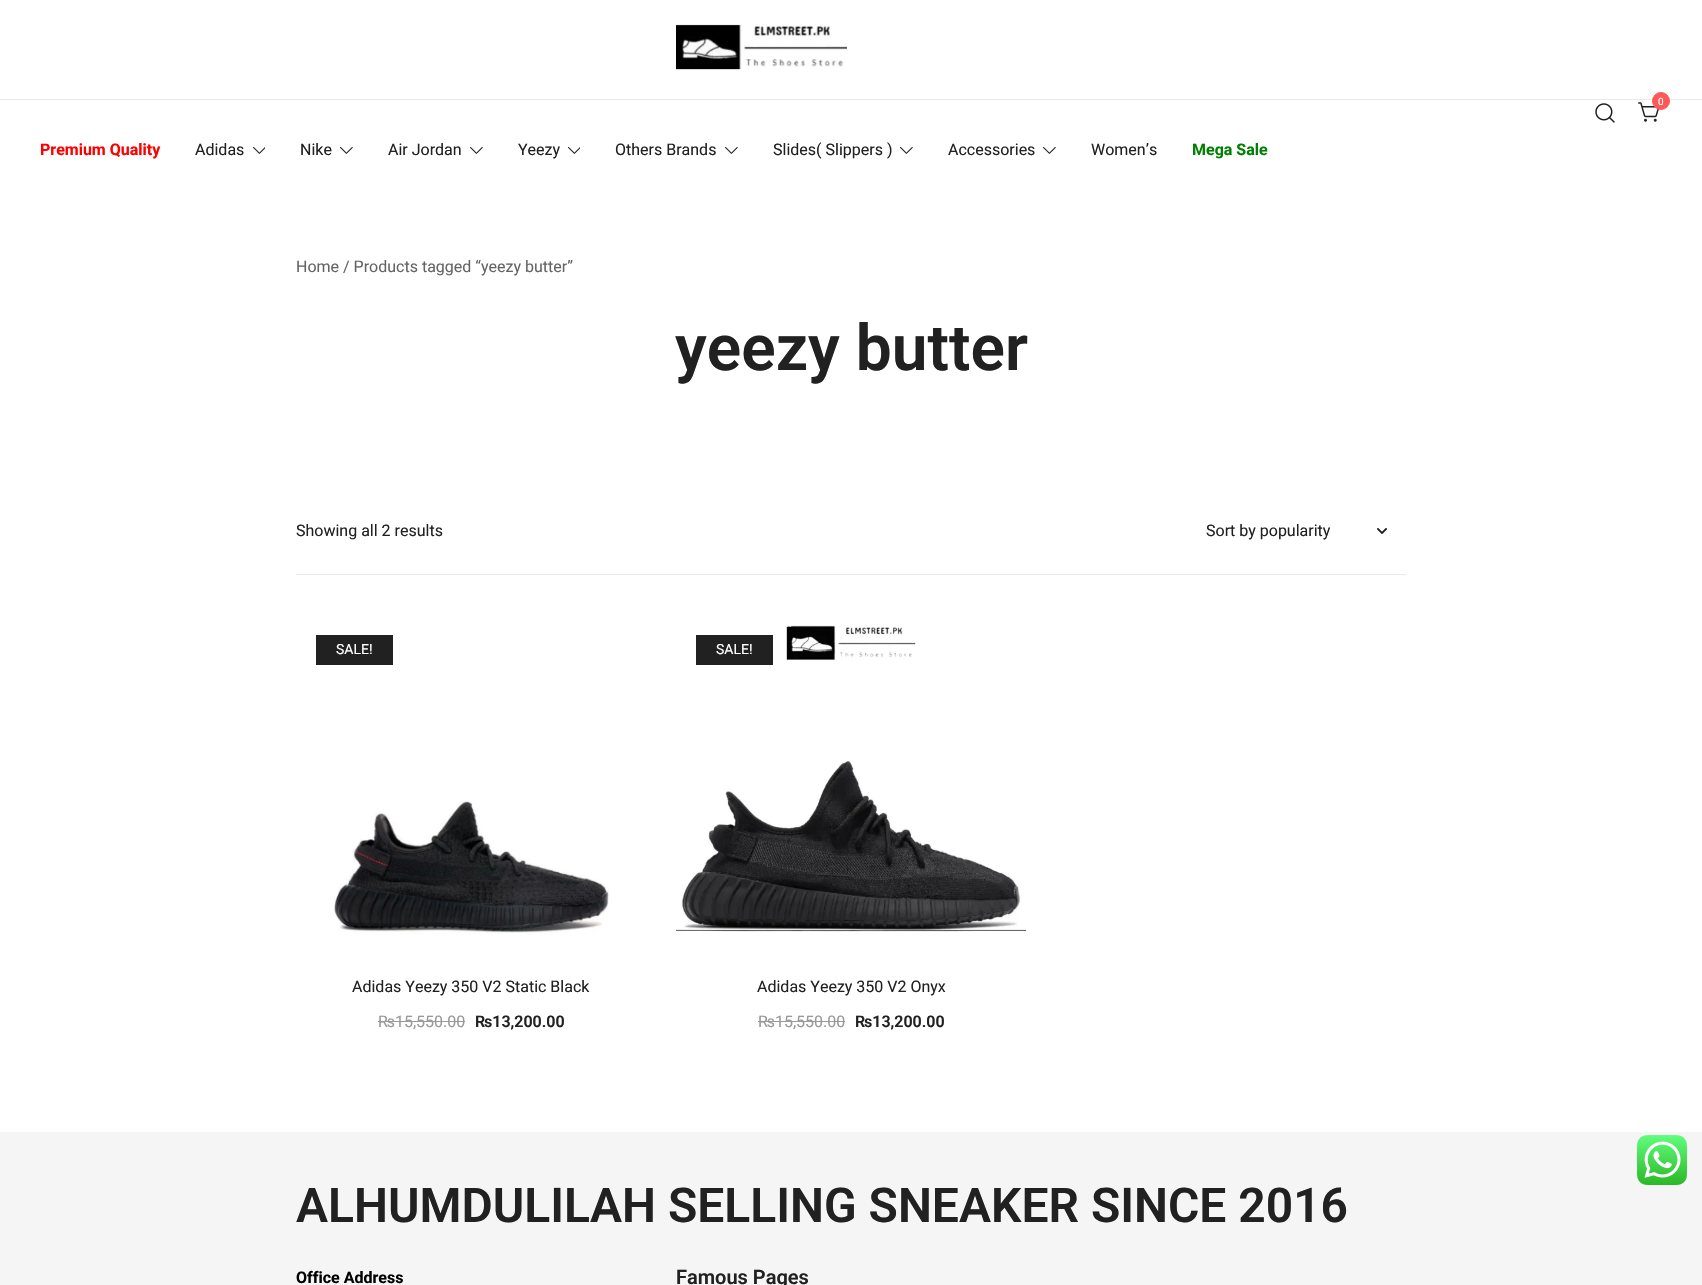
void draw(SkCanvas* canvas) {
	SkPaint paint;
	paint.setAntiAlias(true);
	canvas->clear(0xffffffff);
	paint.setColor(0xffeaeaea);
	canvas->drawRect(SkRect::MakeXYWH(0, 99, 1702, 1), paint);
	canvas->drawImageRect(SkImages::DeferredFromEncodedData(SkData::MakeFromFileName("img1.png")), SkRect::MakeXYWH(676, 24, 171, 46), SkSamplingOptions());
	canvas->drawImageRect(SkImages::DeferredFromEncodedData(SkData::MakeFromFileName("img2.png")), SkRect::MakeXYWH(1638, 102, 21, 20), SkSamplingOptions());
	paint.setColor(0xffff5858);
	canvas->drawCircle(1661, 101, 8.5, paint);
	paint.setStroke(true);
	paint.setStrokeWidth(1);
	canvas->drawCircle(1661, 101, 8.5, paint);
	SkFont f1(fontMgr->matchFamilyStyle("Roboto", SkFontStyle::Normal()), 10);
	f1.setSubpixel(true);
	paint.setStroke(false);
	paint.setColor(0xffffffff);
	canvas->drawString("0", 1658, 105, f1, paint);
	canvas->drawImageRect(SkImages::DeferredFromEncodedData(SkData::MakeFromFileName("img3.png")), SkRect::MakeXYWH(1595, 103, 20, 20), SkSamplingOptions());
	SkFont f2(fontMgr->matchFamilyStyle("Roboto", SkFontStyle::Bold()), 16);
	f2.setSubpixel(true);
	paint.setColor(0xffff0000);
	canvas->drawString("Premium Quality", 40, 155, f2, paint);
	SkFont f3(fontMgr->matchFamilyStyle("Roboto", SkFontStyle::Normal()), 16);
	f3.setSubpixel(true);
	paint.setColor(0xff212121);
	canvas->drawString("Adidas", 195, 155, f3, paint);
	canvas->drawImageRect(SkImages::DeferredFromEncodedData(SkData::MakeFromFileName("img4.png")), SkRect::MakeXYWH(253, 147, 12, 7), SkSamplingOptions());
	canvas->drawString("Nike", 300, 155, f3, paint);
	canvas->drawImageRect(SkImages::DeferredFromEncodedData(SkData::MakeFromFileName("img5.png")), SkRect::MakeXYWH(340, 147, 13, 7), SkSamplingOptions());
	canvas->drawString("Air Jordan", 388, 155, f3, paint);
	canvas->drawImageRect(SkImages::DeferredFromEncodedData(SkData::MakeFromFileName("img5.png")), SkRect::MakeXYWH(470, 147, 13, 7), SkSamplingOptions());
	canvas->drawString("Yeezy", 518, 155, f3, paint);
	canvas->drawImageRect(SkImages::DeferredFromEncodedData(SkData::MakeFromFileName("img4.png")), SkRect::MakeXYWH(568, 147, 12, 7), SkSamplingOptions());
	canvas->drawString("Others Brands", 615, 155, f3, paint);
	canvas->drawImageRect(SkImages::DeferredFromEncodedData(SkData::MakeFromFileName("img5.png")), SkRect::MakeXYWH(725, 147, 13, 7), SkSamplingOptions());
	canvas->drawString("Slides( Slippers )", 773, 155, f3, paint);
	canvas->drawImageRect(SkImages::DeferredFromEncodedData(SkData::MakeFromFileName("img5.png")), SkRect::MakeXYWH(900, 147, 13, 7), SkSamplingOptions());
	canvas->drawString("Accessories", 948, 155, f3, paint);
	canvas->drawImageRect(SkImages::DeferredFromEncodedData(SkData::MakeFromFileName("img5.png")), SkRect::MakeXYWH(1043, 147, 13, 7), SkSamplingOptions());
	canvas->drawString("Women’s", 1091, 155, f3, paint);
	paint.setColor(0xff008000);
	canvas->drawString("Mega Sale", 1192, 155, f2, paint);
	paint.setColor(0xff646464);
	canvas->drawString("Home / Products tagged “yeezy butter”", 296, 272, f3, paint);
	SkFont f4(fontMgr->matchFamilyStyle("Roboto", SkFontStyle(600, SkFontStyle::kNormal_Width, SkFontStyle::kUpright_Slant)), 64);
	f4.setSubpixel(true);
	paint.setColor(0xff212121);
	canvas->drawString("yeezy butter", 675, 370, f4, paint);
	paint.setColor(0xffe9e9e9);
	canvas->drawRect(SkRect::MakeXYWH(296, 574, 1110, 1), paint);
	paint.setColor(0xff212121);
	canvas->drawString("Showing all 2 results", 296, 536, f3, paint);
	canvas->drawImageRect(SkImages::DeferredFromEncodedData(SkData::MakeFromFileName("img6.png")), SkRect::MakeXYWH(1377, 528, 10, 6), SkSamplingOptions());
	canvas->drawString("Sort by popularity", 1206, 536, f3, paint);
	canvas->drawRect(SkRect::MakeXYWH(316, 635, 77, 30), paint);
	SkFont f5(fontMgr->matchFamilyStyle("Roboto", SkFontStyle::Normal()), 14);
	f5.setSubpixel(true);
	paint.setColor(0xffffffff);
	canvas->drawString("SALE!", 336, 654, f5, paint);
	canvas->drawImageRect(SkImages::DeferredFromEncodedData(SkData::MakeFromFileName("img7.png")), SkRect::MakeXYWH(334, 801, 275, 134), SkSamplingOptions());
	paint.setColor(0xff212121);
	canvas->drawString("Adidas Yeezy 350 V2 Static Black", 352, 992, f3, paint);
	paint.setColor(0xff999999);
	canvas->drawString("₨15,550.00", 378, 1027, f3, paint);
	canvas->drawRect(SkRect::MakeXYWH(378, 1021, 87, 1), paint);
	SkFont f6(fontMgr->matchFamilyStyle("Roboto", SkFontStyle(600, SkFontStyle::kNormal_Width, SkFontStyle::kUpright_Slant)), 16);
	f6.setSubpixel(true);
	paint.setColor(0xff212121);
	canvas->drawString("₨13,200.00", 475, 1027, f6, paint);
	canvas->drawImageRect(SkImages::DeferredFromEncodedData(SkData::MakeFromFileName("img8.png")), SkRect::MakeXYWH(676, 625, 350, 307), SkSamplingOptions());
	canvas->drawRect(SkRect::MakeXYWH(696, 635, 77, 30), paint);
	paint.setColor(0xffffffff);
	canvas->drawString("SALE!", 716, 654, f5, paint);
	paint.setColor(0xff212121);
	canvas->drawString("Adidas Yeezy 350 V2 Onyx", 757, 992, f3, paint);
	paint.setColor(0xff999999);
	canvas->drawString("₨15,550.00", 758, 1027, f3, paint);
	canvas->drawRect(SkRect::MakeXYWH(758, 1021, 87, 1), paint);
	paint.setColor(0xff212121);
	canvas->drawString("₨13,200.00", 855, 1027, f6, paint);
	paint.setColor(0xfff5f5f5);
	canvas->drawRect(SkRect::MakeXYWH(0, 1132, 1702, 153), paint);
	SkFont f7(fontMgr->matchFamilyStyle("Roboto", SkFontStyle(600, SkFontStyle::kNormal_Width, SkFontStyle::kUpright_Slant)), 48);
	f7.setSubpixel(true);
	paint.setColor(0xff212121);
	canvas->drawString("ALHUMDULILAH SELLING SNEAKER SINCE 2016", 296, 1222, f7, paint);
	paint.setColor(0xff000000);
	canvas->drawString("Office Address", 296, 1283, f2, paint);
	SkFont f8(fontMgr->matchFamilyStyle("Roboto", SkFontStyle(600, SkFontStyle::kNormal_Width, SkFontStyle::kUpright_Slant)), 20);
	f8.setSubpixel(true);
	paint.setColor(0xff212121);
	canvas->drawString("Famous Pages", 676, 1284, f8, paint);
	canvas->drawImageRect(SkImages::DeferredFromEncodedData(SkData::MakeFromFileName("img9.png")), SkRect::MakeXYWH(1637, 1135, 50, 50), SkSamplingOptions());
}
